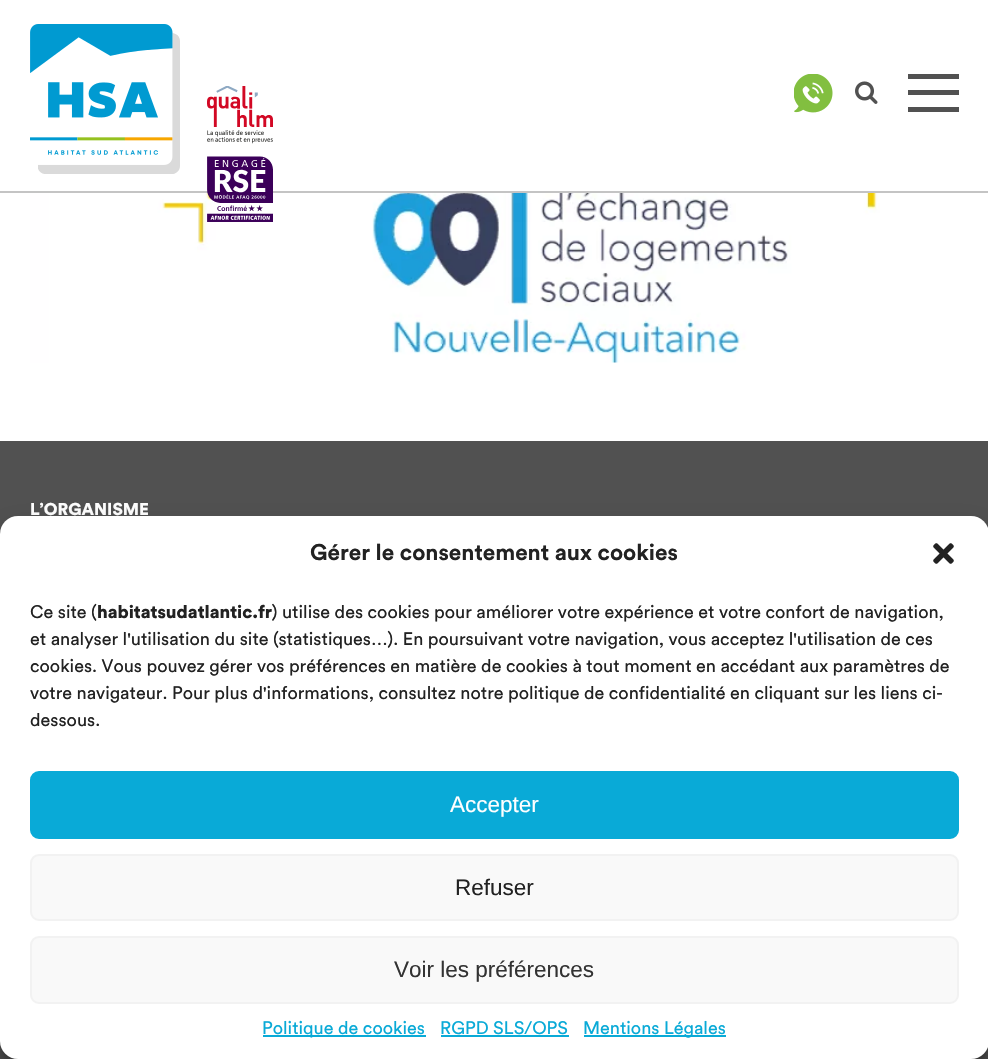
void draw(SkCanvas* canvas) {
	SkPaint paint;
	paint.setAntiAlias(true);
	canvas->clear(0xffffffff);
	paint.setColor(0xffc4c4c4);
	canvas->drawRect(SkRect::MakeXYWH(0, 191, 988, 2), paint);
	canvas->drawImageRect(SkImages::DeferredFromEncodedData(SkData::MakeFromFileName("img2.png")), SkRect::MakeXYWH(38, 33, 142, 141), SkSamplingOptions());
	canvas->drawImageRect(SkImages::DeferredFromEncodedData(SkData::MakeFromFileName("img1.png")), SkRect::MakeXYWH(30, 24, 143, 141), SkSamplingOptions());
	canvas->drawImageRect(SkImages::DeferredFromEncodedData(SkData::MakeFromFileName("img6.png")), SkRect::MakeXYWH(30, 193, 929, 170), SkSamplingOptions());
	canvas->drawImageRect(SkImages::DeferredFromEncodedData(SkData::MakeFromFileName("img3.png")), SkRect::MakeXYWH(207, 86, 66, 136), SkSamplingOptions());
	canvas->drawImageRect(SkImages::DeferredFromEncodedData(SkData::MakeFromFileName("img4.png")), SkRect::MakeXYWH(794, 74, 39, 39), SkSamplingOptions());
	canvas->drawImageRect(SkImages::DeferredFromEncodedData(SkData::MakeFromFileName("img5.png")), SkRect::MakeXYWH(855, 81, 23, 23), SkSamplingOptions());
	paint.setColor(0xff515151);
	canvas->drawRect(SkRect::MakeXYWH(908, 74, 51, 5), paint);
	canvas->drawRect(SkRect::MakeXYWH(908, 90, 51, 5), paint);
	canvas->drawRect(SkRect::MakeXYWH(908, 107, 51, 5), paint);
	canvas->drawRect(SkRect::MakeXYWH(0, 441, 988, 618), paint);
	SkFont f1(fontMgr->matchFamilyStyle("Circular", SkFontStyle(900, SkFontStyle::kNormal_Width, SkFontStyle::kUpright_Slant)), 17);
	f1.setSubpixel(true);
	paint.setColor(0xffffffff);
	canvas->drawString("L’ORGANISME", 30, 515, f1, paint);
	paint.setColor(0x3b000000);
	paint.setMaskFilter(SkMaskFilter::MakeBlur(kNormal_SkBlurStyle, 4.5));
	canvas->drawRoundRect(SkRect::MakeXYWH(0, 525, 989, 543), 18, 18, paint);
	paint.setMaskFilter(nullptr);
	paint.setColor(0x30000000);
	paint.setMaskFilter(SkMaskFilter::MakeBlur(kNormal_SkBlurStyle, 15));
	canvas->drawRoundRect(SkRect::MakeXYWH(0, 531, 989, 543), 18, 18, paint);
	paint.setMaskFilter(nullptr);
	paint.setColor(0xffffffff);
	canvas->drawRoundRect(SkRect::MakeXYWH(0, 516, 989, 543), 18, 18, paint);
	SkFont f2(fontMgr->matchFamilyStyle("Circular", SkFontStyle::Bold()), 22.5);
	f2.setSubpixel(true);
	paint.setColor(0xff222222);
	canvas->drawString("Gérer le consentement aux cookies", 310, 560, f2, paint);
	canvas->drawImageRect(SkImages::DeferredFromEncodedData(SkData::MakeFromFileName("img7.png")), SkRect::MakeXYWH(933, 543, 21, 21), SkSamplingOptions());
	SkFont f3(fontMgr->matchFamilyStyle("Circular", SkFontStyle::Normal()), 18);
	f3.setSubpixel(true);
	canvas->drawString("Ce site (", 30, 618, f3, paint);
	SkFont f4(fontMgr->matchFamilyStyle("Circular", SkFontStyle(900, SkFontStyle::kNormal_Width, SkFontStyle::kUpright_Slant)), 18);
	f4.setSubpixel(true);
	canvas->drawString("habitatsudatlantic.fr", 97, 618, f4, paint);
	canvas->drawString(") utilise des cookies pour améliorer votre expérience et votre confort de navigation,", 272, 618, f3, paint);
	canvas->drawString("et analyser l'utilisation du site (statistiques…). En poursuivant votre navigation, vous acceptez l'utilisation de ces", 30, 645, f3, paint);
	canvas->drawString("cookies. Vous pouvez gérer vos préférences en matière de cookies à tout moment en accédant aux paramètres de", 30, 672, f3, paint);
	canvas->drawString("votre navigateur. Pour plus d'informations, consultez notre politique de confidentialité en cliquant sur les liens ci-", 30, 699, f3, paint);
	canvas->drawString("dessous.", 30, 726, f3, paint);
	paint.setColor(0xff09aad7);
	canvas->drawRoundRect(SkRect::MakeXYWH(31, 772, 927, 66), 8, 8, paint);
	paint.setStroke(true);
	paint.setStrokeWidth(2);
	canvas->drawRoundRect(SkRect::MakeXYWH(31, 772, 927, 66), 8, 8, paint);
	SkFont f5(fontMgr->matchFamilyStyle("Liberation Sans", SkFontStyle::Normal()), 22.5);
	f5.setSubpixel(true);
	paint.setStroke(false);
	paint.setColor(0xffffffff);
	canvas->drawString("Accepter", 450, 812, f5, paint);
	paint.setColor(0xfff9f9f9);
	canvas->drawRoundRect(SkRect::MakeXYWH(31, 855, 927, 65), 8, 8, paint);
	paint.setStroke(true);
	paint.setColor(0xfff2f2f2);
	canvas->drawRoundRect(SkRect::MakeXYWH(31, 855, 927, 65), 8, 8, paint);
	paint.setStroke(false);
	paint.setColor(0xff222222);
	canvas->drawString("Refuser", 455, 895, f5, paint);
	paint.setColor(0xfff9f9f9);
	canvas->drawRoundRect(SkRect::MakeXYWH(31, 937, 927, 66), 8, 8, paint);
	paint.setStroke(true);
	paint.setColor(0xfff2f2f2);
	canvas->drawRoundRect(SkRect::MakeXYWH(31, 937, 927, 66), 8, 8, paint);
	paint.setStroke(false);
	paint.setColor(0xff333333);
	canvas->drawString("Voir les préférences", 394, 977, f5, paint);
	paint.setColor(0xff09aad7);
	canvas->drawRect(SkRect::MakeXYWH(263, 1035, 163, 2), paint);
	canvas->drawString("Politique de cookies", 262, 1034, f3, paint);
	canvas->drawString("RGPD SLS/OPS", 440, 1034, f3, paint);
	canvas->drawRect(SkRect::MakeXYWH(441, 1035, 128, 2), paint);
	canvas->drawRect(SkRect::MakeXYWH(584, 1035, 142, 2), paint);
	canvas->drawString("Mentions Légales", 583, 1034, f3, paint);
}
